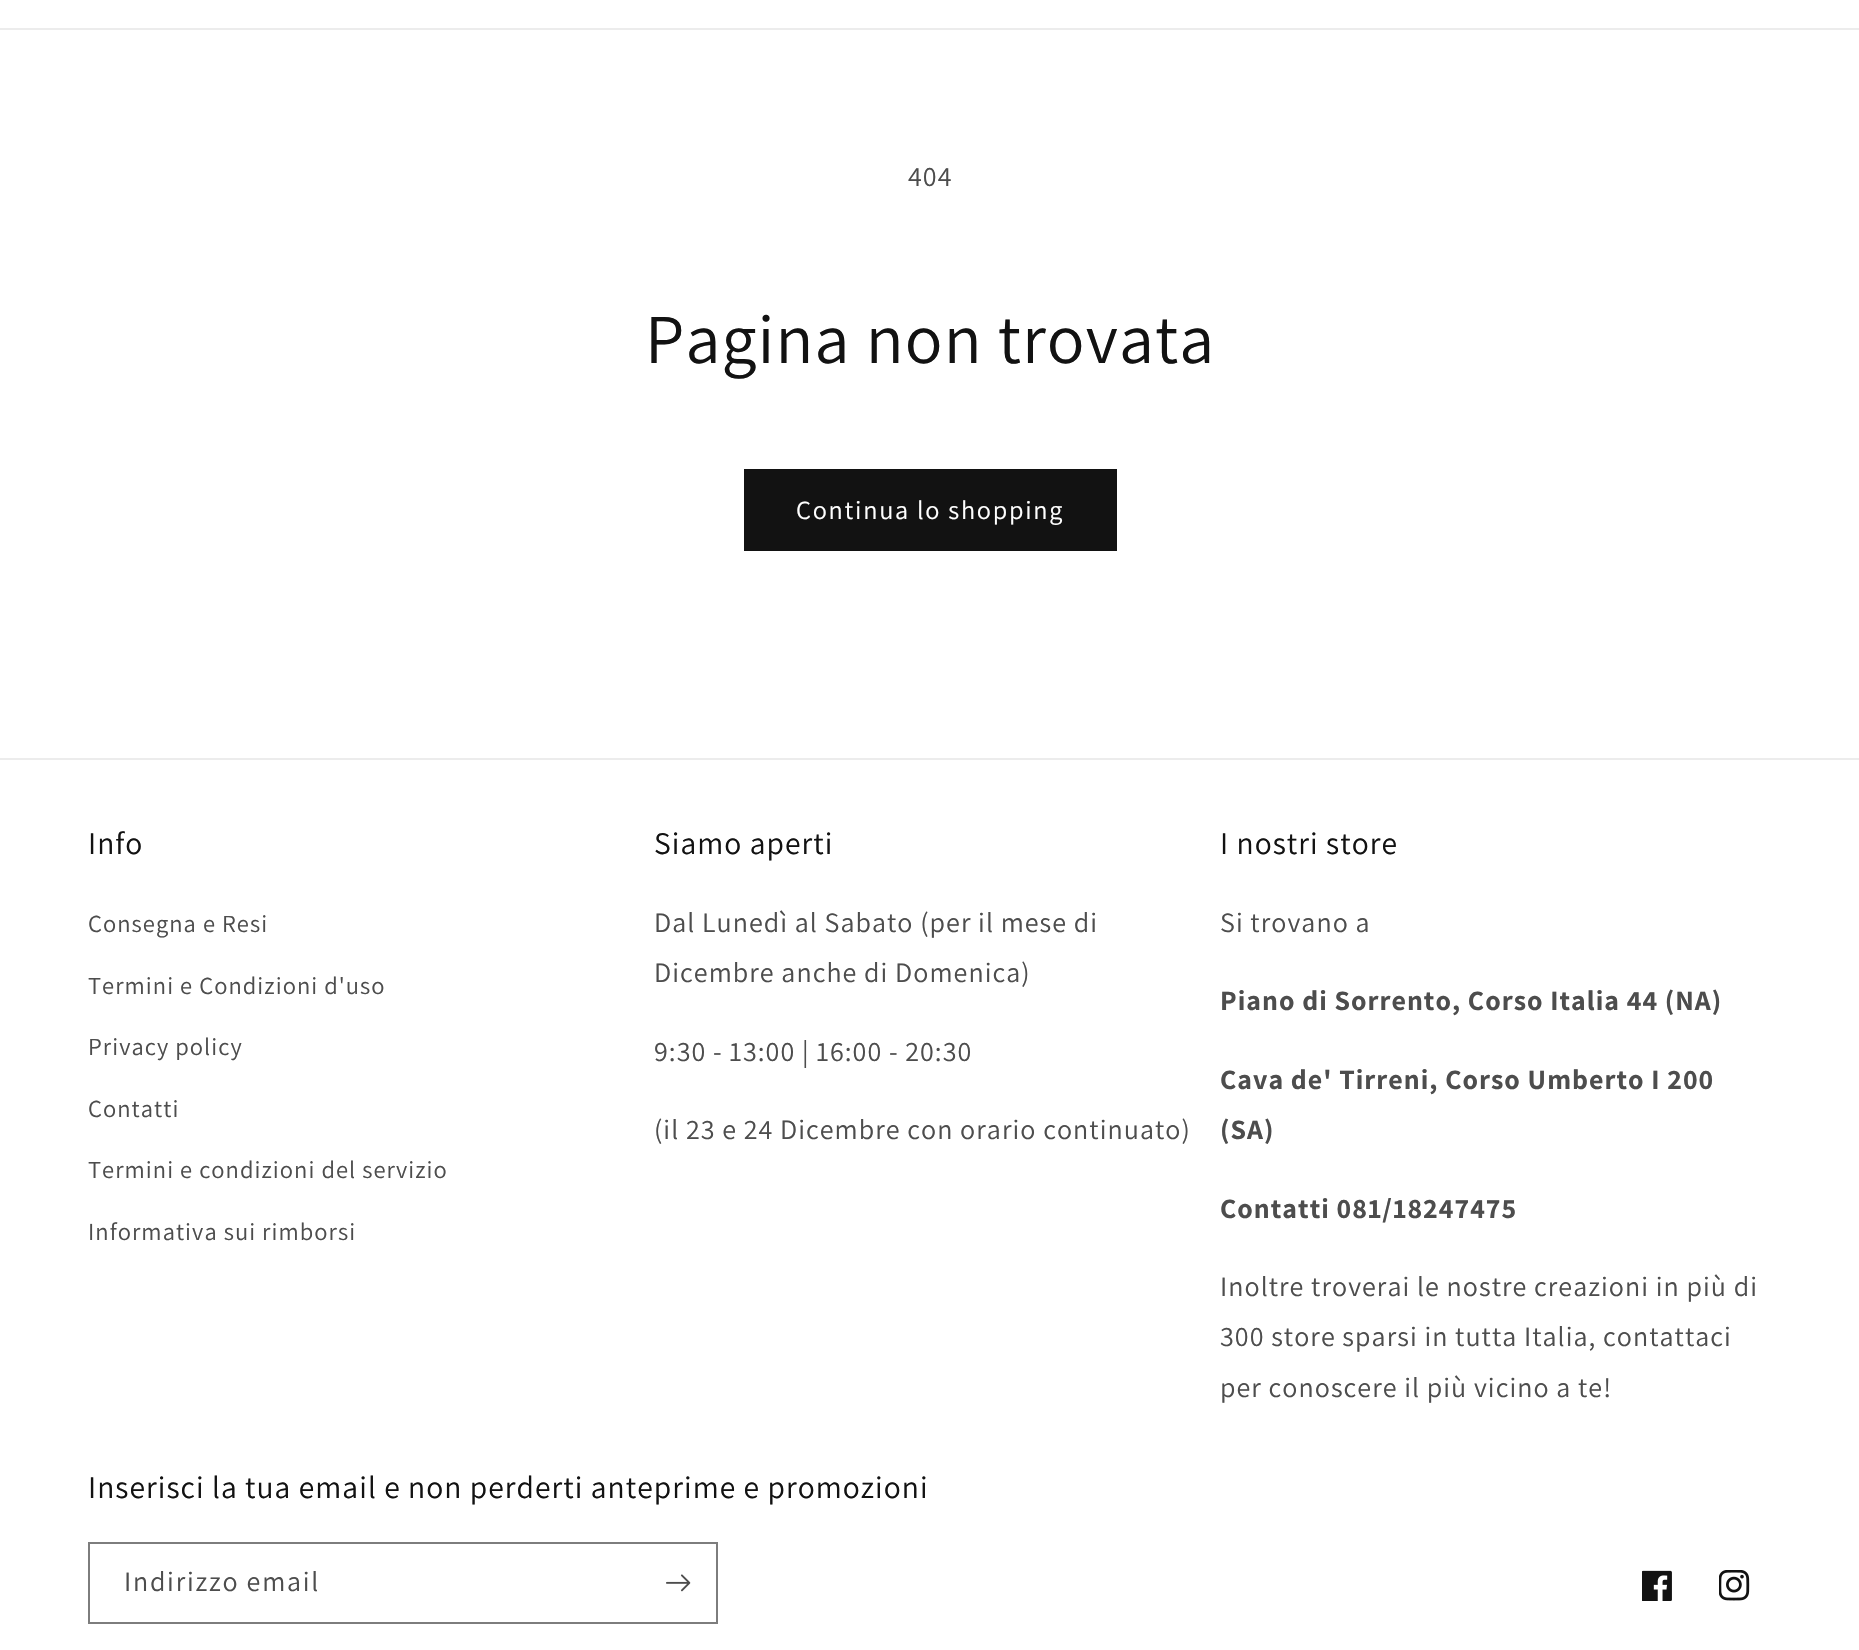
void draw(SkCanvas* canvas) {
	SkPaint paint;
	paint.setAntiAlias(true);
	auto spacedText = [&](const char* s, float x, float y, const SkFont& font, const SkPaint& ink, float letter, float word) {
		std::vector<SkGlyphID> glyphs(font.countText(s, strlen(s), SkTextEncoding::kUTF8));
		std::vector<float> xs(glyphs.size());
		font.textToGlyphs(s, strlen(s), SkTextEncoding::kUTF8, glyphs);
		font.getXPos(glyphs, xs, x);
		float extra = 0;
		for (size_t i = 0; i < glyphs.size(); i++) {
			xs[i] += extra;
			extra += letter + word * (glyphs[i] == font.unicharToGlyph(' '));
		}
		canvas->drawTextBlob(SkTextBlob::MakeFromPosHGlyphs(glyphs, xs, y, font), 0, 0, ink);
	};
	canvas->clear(0xffffffff);
	paint.setColor(0xffececec);
	canvas->drawRect(SkRect::MakeXYWH(0, 28, 1859, 2), paint);
	SkFont f1(fontMgr->matchFamilyStyle("Assistant", SkFontStyle::Normal()), 28);
	f1.setSubpixel(true);
	paint.setColor(0xff4d4d4d);
	spacedText("404", 908, 186, f1, paint, 1.05, 0);
	SkFont f2(fontMgr->matchFamilyStyle("Assistant", SkFontStyle::Normal()), 70);
	f2.setSubpixel(true);
	paint.setColor(0xff121212);
	spacedText("Pagina non trovata", 645, 363, f2, paint, 1.05, 0);
	canvas->drawRect(SkRect::MakeXYWH(744, 469, 373, 82), paint);
	SkFont f3(fontMgr->matchFamilyStyle("Assistant", SkFontStyle::Normal()), 26.25);
	f3.setSubpixel(true);
	paint.setColor(0xffffffff);
	spacedText("Continua lo shopping", 796, 519, f3, paint, 1.75, 0);
	paint.setColor(0xffececec);
	canvas->drawRect(SkRect::MakeXYWH(0, 758, 1859, 2), paint);
	SkFont f4(fontMgr->matchFamilyStyle("Assistant", SkFontStyle::Normal()), 31.5);
	f4.setSubpixel(true);
	paint.setColor(0xff121212);
	spacedText("Info", 88, 854, f4, paint, 1.05, 0);
	SkFont f5(fontMgr->matchFamilyStyle("Assistant", SkFontStyle::Normal()), 24.5);
	f5.setSubpixel(true);
	paint.setColor(0xff4d4d4d);
	spacedText("Consegna e Resi", 88, 932, f5, paint, 1.05, 0);
	spacedText("Termini e Condizioni d'uso", 88, 994, f5, paint, 1.05, 0);
	spacedText("Privacy policy", 88, 1055, f5, paint, 1.05, 0);
	spacedText("Contatti", 88, 1117, f5, paint, 1.05, 0);
	spacedText("Termini e condizioni del servizio", 88, 1178, f5, paint, 1.05, 0);
	spacedText("Informativa sui rimborsi", 88, 1240, f5, paint, 1.05, 0);
	paint.setColor(0xff121212);
	spacedText("Siamo aperti", 654, 854, f4, paint, 1.05, 0);
	paint.setColor(0xff4d4d4d);
	spacedText("Dal Lunedì al Sabato (per il mese di", 654, 932, f1, paint, 1.05, 0);
	spacedText("Dicembre anche di Domenica)", 654, 982, f1, paint, 1.05, 0);
	spacedText("9:30 - 13:00 | 16:00 - 20:30", 654, 1061, f1, paint, 1.05, 0);
	spacedText("(il 23 e 24 Dicembre con orario continuato)", 654, 1139, f1, paint, 1.05, 0);
	paint.setColor(0xff121212);
	spacedText("I nostri store", 1220, 854, f4, paint, 1.05, 0);
	paint.setColor(0xff4d4d4d);
	spacedText("Si trovano a", 1220, 932, f1, paint, 1.05, 0);
	SkFont f6(fontMgr->matchFamilyStyle("Assistant", SkFontStyle::Bold()), 28);
	f6.setSubpixel(true);
	spacedText("Piano di Sorrento, Corso Italia 44 (NA)", 1220, 1010, f6, paint, 1.05, 0);
	spacedText("Cava de' Tirreni, Corso Umberto I 200", 1220, 1089, f6, paint, 1.05, 0);
	spacedText("(SA)", 1220, 1139, f6, paint, 1.05, 0);
	spacedText("Contatti 081/18247475", 1220, 1218, f6, paint, 1.05, 0);
	spacedText("Inoltre troverai le nostre creazioni in più di", 1220, 1296, f1, paint, 1.05, 0);
	spacedText("300 store sparsi in tutta Italia, contattaci", 1220, 1346, f1, paint, 1.05, 0);
	spacedText("per conoscere il più vicino a te!", 1220, 1397, f1, paint, 1.05, 0);
	paint.setColor(0xff121212);
	spacedText("Inserisci la tua email e non perderti anteprime e promozioni", 88, 1498, f4, paint, 1.05, 0);
	paint.setStroke(true);
	paint.setStrokeWidth(2);
	paint.setColor(0xff7d7d7d);
	canvas->drawRect(SkRect::MakeXYWH(89, 1543, 628, 80), paint);
	paint.setStroke(false);
	paint.setColor(0xff4d4d4d);
	spacedText("Indirizzo email", 124, 1591, f1, paint, 1.75, 0);
	canvas->drawImageRect(SkImages::DeferredFromEncodedData(SkData::MakeFromFileName("img1.png")), SkRect::MakeXYWH(666, 1574, 25, 18), SkSamplingOptions());
	canvas->drawImageRect(SkImages::DeferredFromEncodedData(SkData::MakeFromFileName("img2.png")), SkRect::MakeXYWH(1642, 1570, 30, 31), SkSamplingOptions());
	canvas->drawImageRect(SkImages::DeferredFromEncodedData(SkData::MakeFromFileName("img3.png")), SkRect::MakeXYWH(1719, 1570, 31, 31), SkSamplingOptions());
}
